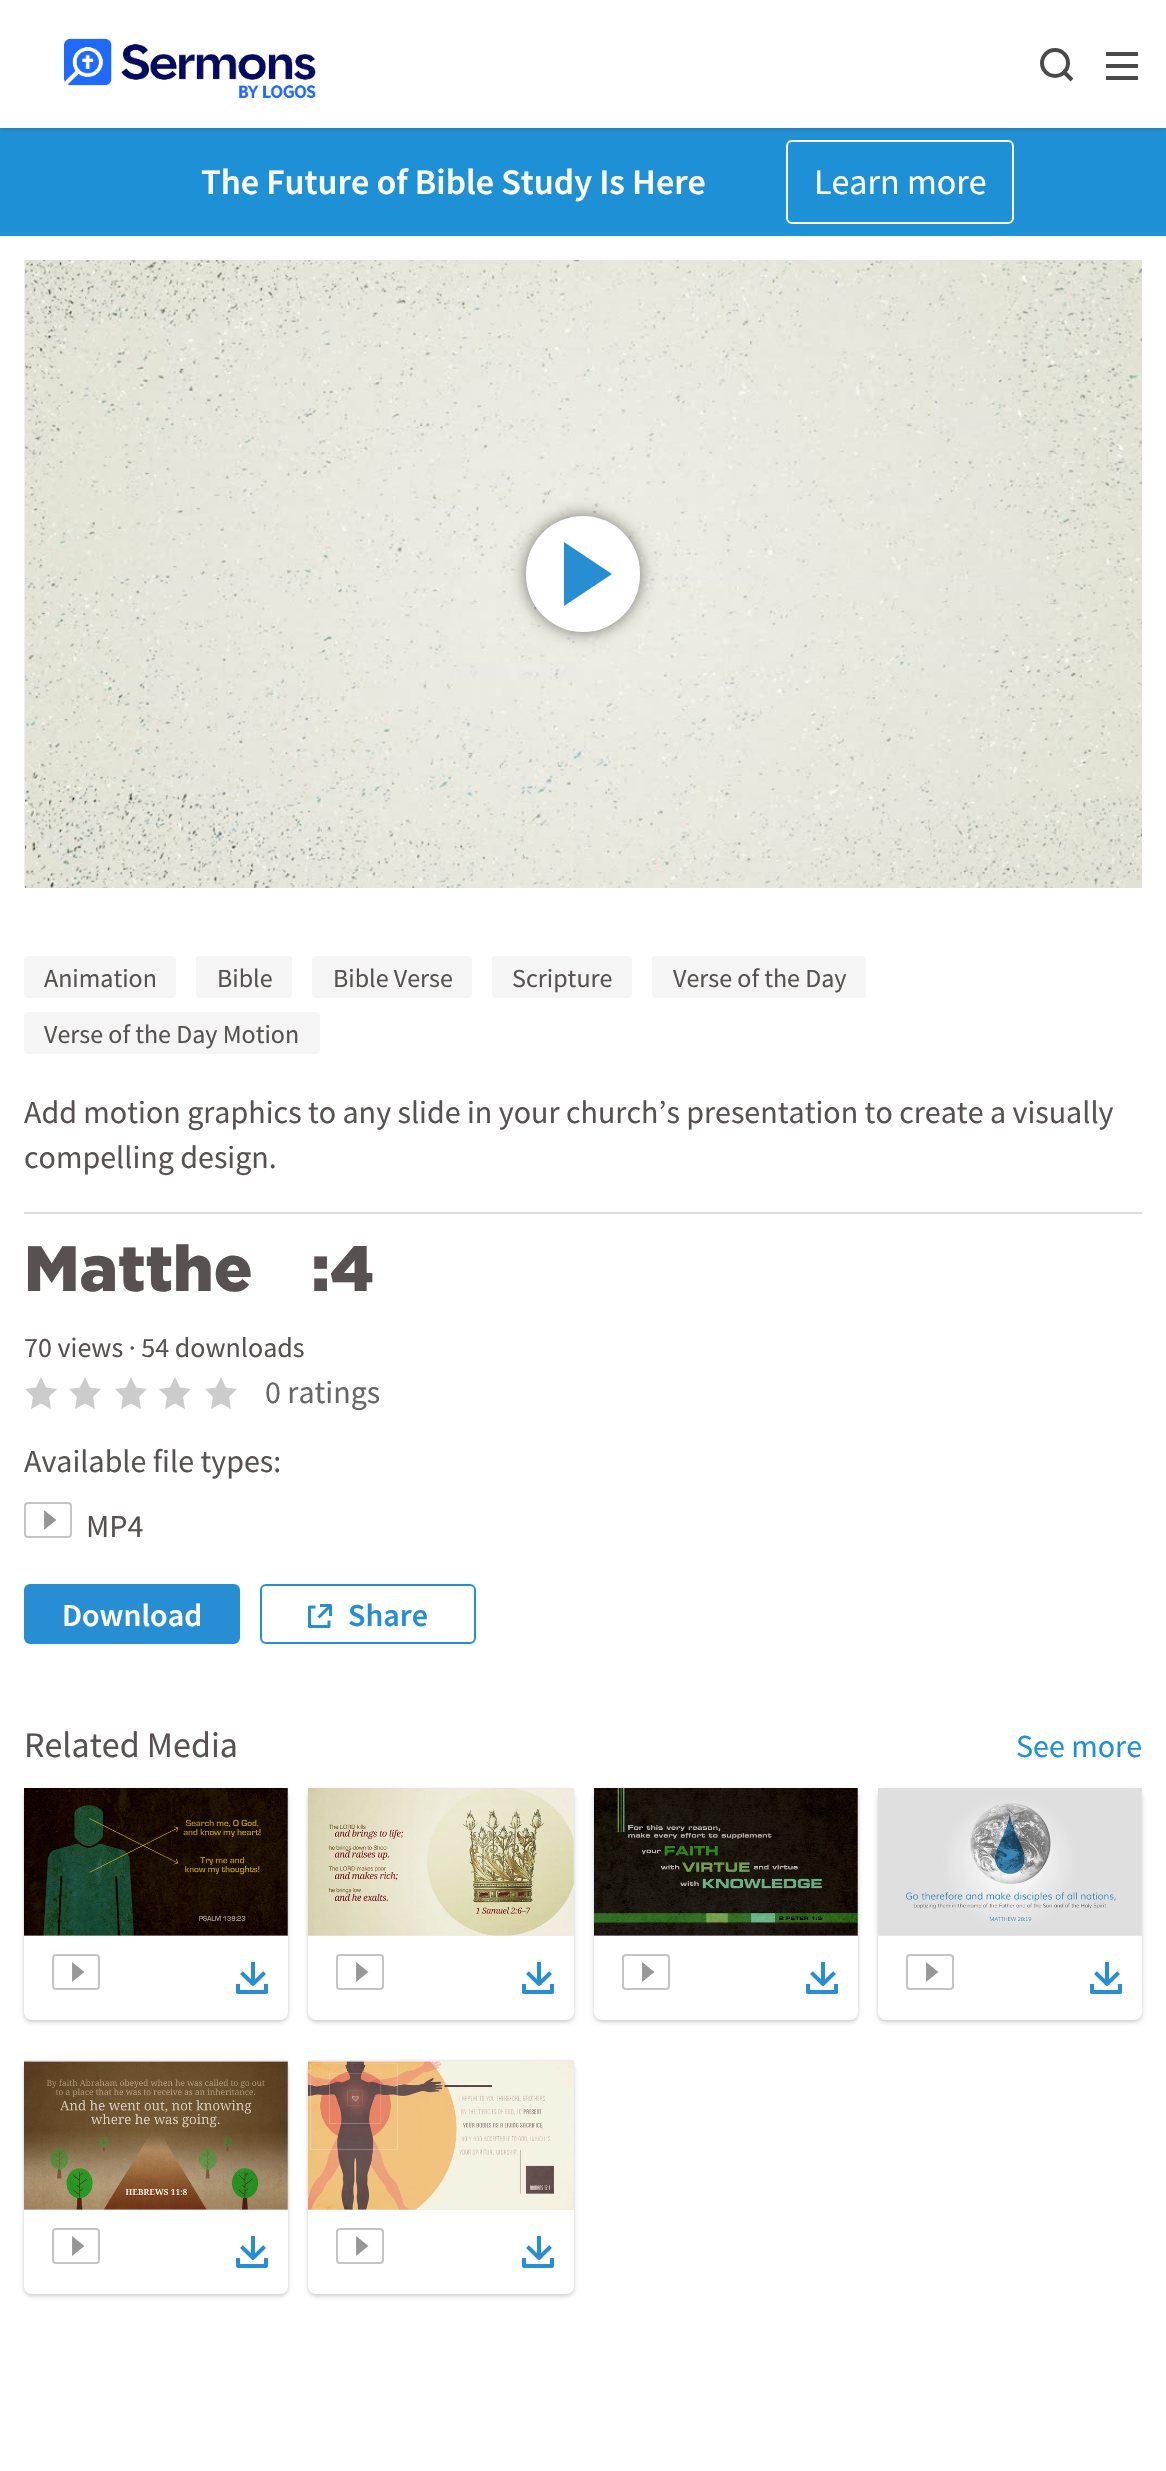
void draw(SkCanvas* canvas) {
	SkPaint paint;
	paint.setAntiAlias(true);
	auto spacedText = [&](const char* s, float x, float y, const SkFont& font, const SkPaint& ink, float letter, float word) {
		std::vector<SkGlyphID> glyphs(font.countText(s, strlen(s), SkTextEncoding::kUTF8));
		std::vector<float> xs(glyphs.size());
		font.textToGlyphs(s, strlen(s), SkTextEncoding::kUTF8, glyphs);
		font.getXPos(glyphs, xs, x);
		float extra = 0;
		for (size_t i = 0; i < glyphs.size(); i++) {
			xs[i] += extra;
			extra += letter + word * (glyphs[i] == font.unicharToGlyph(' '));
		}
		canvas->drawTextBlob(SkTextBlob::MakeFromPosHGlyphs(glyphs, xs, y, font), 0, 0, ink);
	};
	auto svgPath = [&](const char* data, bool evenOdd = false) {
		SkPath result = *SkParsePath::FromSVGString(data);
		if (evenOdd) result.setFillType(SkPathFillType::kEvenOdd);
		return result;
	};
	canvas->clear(0xffffffff);
	paint.setColor(0xff1e91d6);
	canvas->drawRect(SkRect::MakeXYWH(0, 128, 1166, 108), paint);
	canvas->save();
	canvas->clipRect(SkRect::MakeXYWH(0, 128, 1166, 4));
	paint.setColor(0x1a000000);
	paint.setMaskFilter(SkMaskFilter::MakeBlur(kNormal_SkBlurStyle, 2));
	canvas->drawRect(SkRect::MakeXYWH(0, 2, 1166, 128), paint);
	paint.setMaskFilter(nullptr);
	canvas->restore();
	paint.setStroke(true);
	paint.setStrokeWidth(2);
	paint.setColor(0xffffffff);
	canvas->drawRoundRect(SkRect::MakeXYWH(787, 141, 226, 82), 5, 5, paint);
	canvas->save();
	canvas->clipRect(SkRect::MakeXYWH(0, 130, 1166, 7));
	paint.setStroke(false);
	paint.setColor(0x336e83b7);
	paint.setMaskFilter(SkMaskFilter::MakeBlur(kNormal_SkBlurStyle, 4));
	canvas->drawRect(SkRect::MakeXYWH(2, 6, 1162, 126), paint);
	paint.setMaskFilter(nullptr);
	canvas->restore();
	canvas->drawImageRect(SkImages::DeferredFromEncodedData(SkData::MakeFromFileName("img1.png")), SkRect::MakeXYWH(64, 38, 252, 61), SkSamplingOptions());
	paint.setStroke(true);
	paint.setStrokeWidth(4);
	paint.setColor(0xff4a4a4a);
	canvas->drawCircle(1055, 63, 13, paint);
	canvas->drawPath(svgPath("M1063 71L1072 80"), paint);
	canvas->drawImageRect(SkImages::DeferredFromEncodedData(SkData::MakeFromFileName("img2.png")), SkRect::MakeXYWH(1106, 52, 32, 28), SkSamplingOptions());
	SkFont f1(fontMgr->matchFamilyStyle("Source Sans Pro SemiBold", SkFontStyle(600, SkFontStyle::kNormal_Width, SkFontStyle::kUpright_Slant)), 36);
	f1.setSubpixel(true);
	paint.setStroke(false);
	paint.setColor(0xffffffff);
	canvas->drawString("The Future of Bible Study Is Here", 201, 194, f1, paint);
	SkFont f2(fontMgr->matchFamilyStyle("Source Sans Pro", SkFontStyle::Normal()), 36);
	f2.setSubpixel(true);
	canvas->drawString("Learn more", 814, 194, f2, paint);
	paint.setColor(0xffdddcdc);
	canvas->drawRect(SkRect::MakeXYWH(24, 1212, 1118, 2), paint);
	paint.setColor(0xffeeeeee);
	canvas->drawRect(SkRect::MakeXYWH(24, 260, 1, 628), paint);
	canvas->drawImageRect(SkImages::DeferredFromEncodedData(SkData::MakeFromFileName("img3.png")), SkRect::MakeXYWH(25, 260, 1117, 628), SkSamplingOptions());
	paint.setColor(0x80000000);
	paint.setMaskFilter(SkMaskFilter::MakeBlur(kNormal_SkBlurStyle, 8));
	canvas->drawRoundRect(SkRect::MakeXYWH(526, 516, 114, 116), 57, 57, paint);
	paint.setMaskFilter(nullptr);
	paint.setColor(0xffffffff);
	canvas->drawRoundRect(SkRect::MakeXYWH(526, 516, 114, 116), 57, 57, paint);
	paint.setColor(0xff278ed4);
	canvas->drawPath(svgPath("M612 574L564 606V542Z"), paint);
	paint.setColor(0xfff5f5f5);
	canvas->drawRoundRect(SkRect::MakeXYWH(24, 956, 152, 42), 4, 4, paint);
	SkFont f3(fontMgr->matchFamilyStyle("Source Sans Pro", SkFontStyle::Normal()), 26);
	f3.setSubpixel(true);
	paint.setColor(0xff575251);
	canvas->drawString("Animation", 44, 987, f3, paint);
	paint.setColor(0xfff5f5f5);
	canvas->drawRoundRect(SkRect::MakeXYWH(196, 956, 96, 42), 4, 4, paint);
	paint.setColor(0xff575251);
	canvas->drawString("Bible", 217, 987, f3, paint);
	paint.setColor(0xfff5f5f5);
	canvas->drawRoundRect(SkRect::MakeXYWH(312, 956, 160, 42), 4, 4, paint);
	paint.setColor(0xff575251);
	canvas->drawString("Bible Verse", 333, 987, f3, paint);
	paint.setColor(0xfff5f5f5);
	canvas->drawRoundRect(SkRect::MakeXYWH(492, 956, 140, 42), 4, 4, paint);
	paint.setColor(0xff575251);
	canvas->drawString("Scripture", 512, 987, f3, paint);
	paint.setColor(0xfff5f5f5);
	canvas->drawRoundRect(SkRect::MakeXYWH(652, 956, 214, 42), 4, 4, paint);
	paint.setColor(0xff575251);
	canvas->drawString("Verse of the Day", 673, 987, f3, paint);
	paint.setColor(0xfff5f5f5);
	canvas->drawRoundRect(SkRect::MakeXYWH(24, 1012, 296, 42), 4, 4, paint);
	paint.setColor(0xff575251);
	canvas->drawString("Verse of the Day Motion", 44, 1043, f3, paint);
	SkFont f4(fontMgr->matchFamilyStyle("Source Sans Pro", SkFontStyle::Normal()), 32);
	f4.setSubpixel(true);
	canvas->drawString("Add motion graphics to any slide in your church’s presentation to create a visually", 24, 1123, f4, paint);
	canvas->drawString("compelling design.", 24, 1168, f4, paint);
	SkFont f5(fontMgr->matchFamilyStyle("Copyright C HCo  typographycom", SkFontStyle::Normal()), 64);
	f5.setSubpixel(true);
	spacedText("Matthew 10:42", 24, 1291, f5, paint, 0, 41);
	SkFont f6(fontMgr->matchFamilyStyle("Source Sans Pro", SkFontStyle::Normal()), 28);
	f6.setSubpixel(true);
	canvas->drawString("70 views · 54 downloads", 24, 1357, f6, paint);
	paint.setColor(0xffcccccc);
	canvas->drawPath(svgPath("M41 1403.5L31 1409L33 1397L25 1389L36 1387.5L41 1377L46 1387.5L57 1389L49 1397L51 1409Z"), paint);
	canvas->drawPath(svgPath("M85 1403.5L75 1409L77 1397L69 1389L80 1387.5L85 1377L90 1387.5L101 1389L93 1397L95 1409Z"), paint);
	canvas->drawPath(svgPath("M131 1403.5L121 1409L123 1397L115 1389L126 1387.5L131 1377L136 1387.5L147 1389L139 1397L141 1409Z"), paint);
	canvas->drawPath(svgPath("M175 1403.5L165 1409L167 1397L159 1389L170 1387.5L175 1377L180 1387.5L191 1389L183 1397L185 1409Z"), paint);
	canvas->drawPath(svgPath("M221 1403.5L211 1409L213 1397L205 1389L216 1387.5L221 1377L226 1387.5L237 1389L229 1397L231 1409Z"), paint);
	paint.setColor(0xff666666);
	canvas->drawString("0 ratings", 265, 1403, f4, paint);
	paint.setColor(0xff575251);
	canvas->drawString("Available file types:", 24, 1472, f4, paint);
	canvas->drawImageRect(SkImages::DeferredFromEncodedData(SkData::MakeFromFileName("img4.png")), SkRect::MakeXYWH(24, 1502, 48, 36), SkSamplingOptions());
	canvas->drawString("MP4", 86, 1537, f4, paint);
	paint.setColor(0xff278ed4);
	canvas->drawRoundRect(SkRect::MakeXYWH(25, 1585, 214, 58), 5, 5, paint);
	paint.setStroke(true);
	paint.setStrokeWidth(2);
	canvas->drawRoundRect(SkRect::MakeXYWH(25, 1585, 214, 58), 5, 5, paint);
	SkFont f7(fontMgr->matchFamilyStyle("Source Sans Pro SemiBold", SkFontStyle(600, SkFontStyle::kNormal_Width, SkFontStyle::kUpright_Slant)), 32);
	f7.setSubpixel(true);
	paint.setStroke(false);
	paint.setColor(0xffffffff);
	canvas->drawString("Download", 62, 1626, f7, paint);
	paint.setStroke(true);
	paint.setColor(0xff278ed4);
	canvas->drawRoundRect(SkRect::MakeXYWH(261, 1585, 214, 58), 5, 5, paint);
	canvas->drawImageRect(SkImages::DeferredFromEncodedData(SkData::MakeFromFileName("img5.png")), SkRect::MakeXYWH(308, 1604, 24, 24), SkSamplingOptions());
	paint.setStroke(false);
	canvas->drawString("Share", 348, 1626, f7, paint);
	paint.setColor(0xff575251);
	canvas->drawString("Related Media", 24, 1757, f2, paint);
	paint.setColor(0xff1e91d6);
	canvas->drawString("See more", 1016, 1757, f4, paint);
	paint.setColor(0x33000000);
	paint.setMaskFilter(SkMaskFilter::MakeBlur(kNormal_SkBlurStyle, 2));
	canvas->drawRoundRect(SkRect::MakeXYWH(24, 1790, 264, 232), 8, 8, paint);
	paint.setMaskFilter(nullptr);
	paint.setColor(0xffffffff);
	canvas->drawPath(svgPath("M24 1788H288V2012C288 2016.5 284.5 2020 280 2020H32C27.5 2020 24 2016.5 24 2012Z"), paint);
	paint.setColor(0xffeeeeee);
	canvas->drawRect(SkRect::MakeXYWH(24, 1788, 264, 148), paint);
	canvas->drawImageRect(SkImages::DeferredFromEncodedData(SkData::MakeFromFileName("img6.png")), SkRect::MakeXYWH(24, 1788, 264, 148), SkSamplingOptions());
	canvas->drawImageRect(SkImages::DeferredFromEncodedData(SkData::MakeFromFileName("img7.png")), SkRect::MakeXYWH(52, 1954, 48, 36), SkSamplingOptions());
	canvas->drawImageRect(SkImages::DeferredFromEncodedData(SkData::MakeFromFileName("img8.png")), SkRect::MakeXYWH(236, 1962, 32, 32), SkSamplingOptions());
	paint.setColor(0x33000000);
	paint.setMaskFilter(SkMaskFilter::MakeBlur(kNormal_SkBlurStyle, 2));
	canvas->drawRoundRect(SkRect::MakeXYWH(308, 1790, 266, 232), 8, 8, paint);
	paint.setMaskFilter(nullptr);
	paint.setColor(0xffffffff);
	canvas->drawPath(svgPath("M308 1788H574V2012C574 2016.5 570.5 2020 566 2020H316C311.5 2020 308 2016.5 308 2012Z"), paint);
	paint.setColor(0xffeeeeee);
	canvas->drawRect(SkRect::MakeXYWH(308, 1788, 266, 148), paint);
	canvas->drawImageRect(SkImages::DeferredFromEncodedData(SkData::MakeFromFileName("img9.png")), SkRect::MakeXYWH(308, 1788, 266, 148), SkSamplingOptions());
	canvas->drawImageRect(SkImages::DeferredFromEncodedData(SkData::MakeFromFileName("img7.png")), SkRect::MakeXYWH(336, 1954, 48, 36), SkSamplingOptions());
	canvas->drawImageRect(SkImages::DeferredFromEncodedData(SkData::MakeFromFileName("img8.png")), SkRect::MakeXYWH(522, 1962, 32, 32), SkSamplingOptions());
	paint.setColor(0x33000000);
	paint.setMaskFilter(SkMaskFilter::MakeBlur(kNormal_SkBlurStyle, 2));
	canvas->drawRoundRect(SkRect::MakeXYWH(594, 1790, 264, 232), 8, 8, paint);
	paint.setMaskFilter(nullptr);
	paint.setColor(0xffffffff);
	canvas->drawPath(svgPath("M594 1788H858V2012C858 2016.5 854.5 2020 850 2020H602C597.5 2020 594 2016.5 594 2012Z"), paint);
	paint.setColor(0xffeeeeee);
	canvas->drawRect(SkRect::MakeXYWH(594, 1788, 264, 148), paint);
	canvas->drawImageRect(SkImages::DeferredFromEncodedData(SkData::MakeFromFileName("img10.png")), SkRect::MakeXYWH(594, 1788, 264, 148), SkSamplingOptions());
	canvas->drawImageRect(SkImages::DeferredFromEncodedData(SkData::MakeFromFileName("img7.png")), SkRect::MakeXYWH(622, 1954, 48, 36), SkSamplingOptions());
	canvas->drawImageRect(SkImages::DeferredFromEncodedData(SkData::MakeFromFileName("img8.png")), SkRect::MakeXYWH(806, 1962, 32, 32), SkSamplingOptions());
	paint.setColor(0x33000000);
	paint.setMaskFilter(SkMaskFilter::MakeBlur(kNormal_SkBlurStyle, 2));
	canvas->drawRoundRect(SkRect::MakeXYWH(878, 1790, 264, 232), 8, 8, paint);
	paint.setMaskFilter(nullptr);
	paint.setColor(0xffffffff);
	canvas->drawPath(svgPath("M878 1788H1142V2012C1142 2016.5 1138.5 2020 1134 2020H886C881.5 2020 878 2016.5 878 2012Z"), paint);
	paint.setColor(0xffeeeeee);
	canvas->drawRect(SkRect::MakeXYWH(878, 1788, 264, 148), paint);
	canvas->drawImageRect(SkImages::DeferredFromEncodedData(SkData::MakeFromFileName("img11.png")), SkRect::MakeXYWH(878, 1788, 264, 148), SkSamplingOptions());
	canvas->drawImageRect(SkImages::DeferredFromEncodedData(SkData::MakeFromFileName("img7.png")), SkRect::MakeXYWH(906, 1954, 48, 36), SkSamplingOptions());
	canvas->drawImageRect(SkImages::DeferredFromEncodedData(SkData::MakeFromFileName("img8.png")), SkRect::MakeXYWH(1090, 1962, 32, 32), SkSamplingOptions());
	paint.setColor(0x33000000);
	paint.setMaskFilter(SkMaskFilter::MakeBlur(kNormal_SkBlurStyle, 2));
	canvas->drawRoundRect(SkRect::MakeXYWH(24, 2062, 264, 234), 8, 8, paint);
	paint.setMaskFilter(nullptr);
	paint.setColor(0xffffffff);
	canvas->drawPath(svgPath("M24 2060H288V2286C288 2290.5 284.5 2294 280 2294H32C27.5 2294 24 2290.5 24 2286Z"), paint);
	paint.setColor(0xffeeeeee);
	canvas->drawRect(SkRect::MakeXYWH(24, 2060, 264, 150), paint);
	canvas->drawImageRect(SkImages::DeferredFromEncodedData(SkData::MakeFromFileName("img12.png")), SkRect::MakeXYWH(24, 2061, 264, 149), SkSamplingOptions());
	canvas->drawImageRect(SkImages::DeferredFromEncodedData(SkData::MakeFromFileName("img7.png")), SkRect::MakeXYWH(52, 2228, 48, 36), SkSamplingOptions());
	canvas->drawImageRect(SkImages::DeferredFromEncodedData(SkData::MakeFromFileName("img8.png")), SkRect::MakeXYWH(236, 2236, 32, 32), SkSamplingOptions());
	paint.setColor(0x33000000);
	paint.setMaskFilter(SkMaskFilter::MakeBlur(kNormal_SkBlurStyle, 2));
	canvas->drawRoundRect(SkRect::MakeXYWH(308, 2062, 266, 234), 8, 8, paint);
	paint.setMaskFilter(nullptr);
	paint.setColor(0xffffffff);
	canvas->drawPath(svgPath("M308 2060H574V2286C574 2290.5 570.5 2294 566 2294H316C311.5 2294 308 2290.5 308 2286Z"), paint);
	paint.setColor(0xffeeeeee);
	canvas->drawRect(SkRect::MakeXYWH(308, 2060, 266, 150), paint);
	canvas->drawImageRect(SkImages::DeferredFromEncodedData(SkData::MakeFromFileName("img13.png")), SkRect::MakeXYWH(308, 2061, 266, 149), SkSamplingOptions());
	canvas->drawImageRect(SkImages::DeferredFromEncodedData(SkData::MakeFromFileName("img7.png")), SkRect::MakeXYWH(336, 2228, 48, 36), SkSamplingOptions());
	canvas->drawImageRect(SkImages::DeferredFromEncodedData(SkData::MakeFromFileName("img8.png")), SkRect::MakeXYWH(522, 2236, 32, 32), SkSamplingOptions());
}
